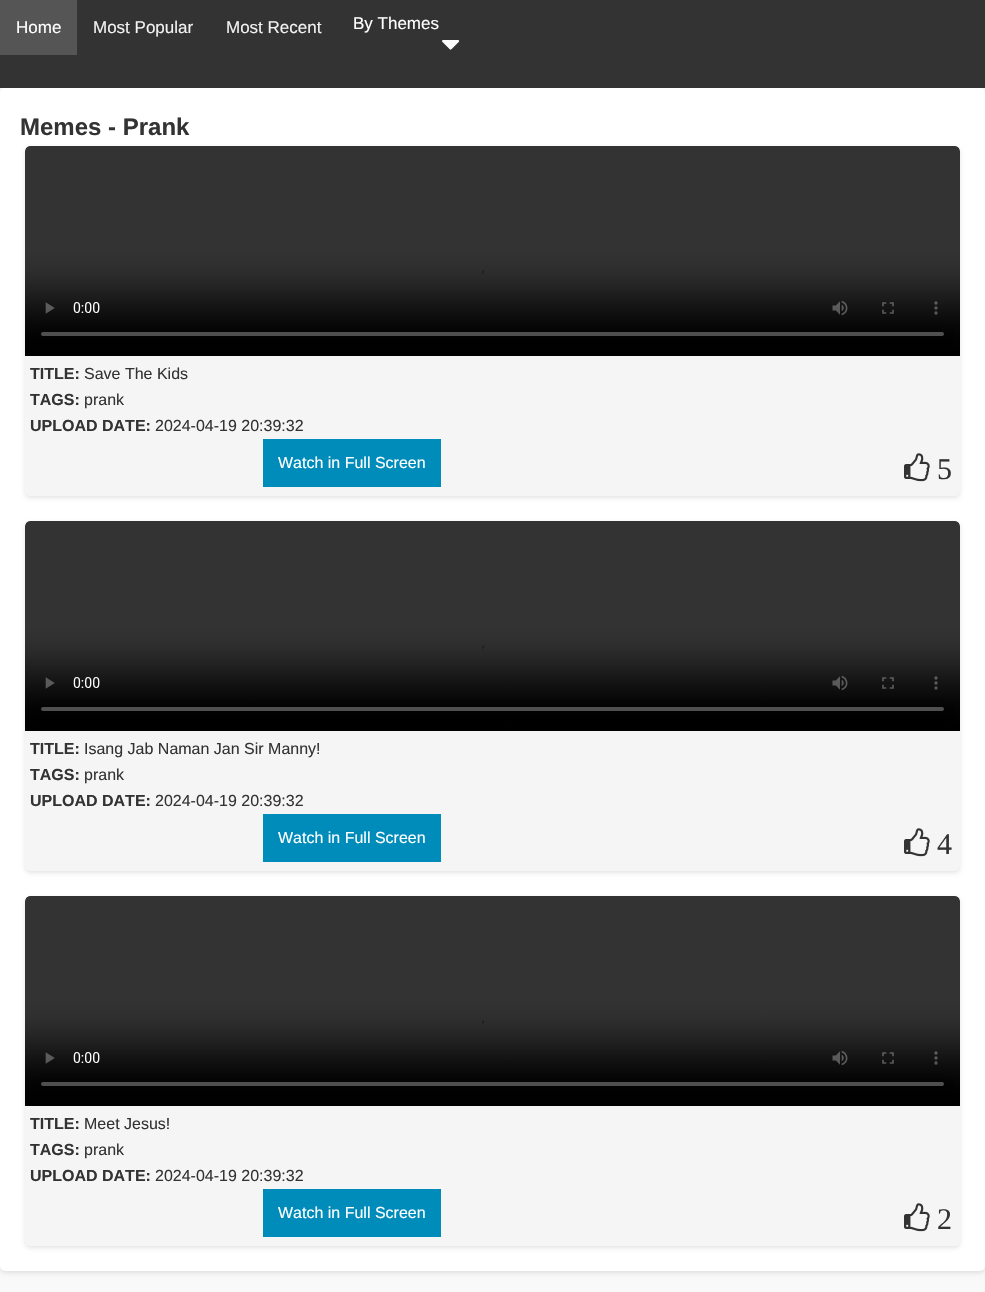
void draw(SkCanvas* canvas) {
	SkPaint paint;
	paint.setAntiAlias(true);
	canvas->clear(0xfff9f9f9);
	paint.setColor(0x1a000000);
	paint.setMaskFilter(SkMaskFilter::MakeBlur(kNormal_SkBlurStyle, 2));
	canvas->drawRoundRect(SkRect::MakeXYWH(0, 90, 985, 1183), 5, 5, paint);
	paint.setMaskFilter(nullptr);
	paint.setColor(0xff333333);
	canvas->drawRect(SkRect::MakeXYWH(0, 0, 985, 88), paint);
	paint.setColor(0xff555555);
	canvas->drawRect(SkRect::MakeXYWH(0, 0, 77, 55), paint);
	SkFont f1(fontMgr->matchFamilyStyle("Liberation Sans", SkFontStyle::Normal()), 17);
	f1.setSubpixel(true);
	paint.setColor(0xffffffff);
	canvas->drawString("Home", 16, 33, f1, paint);
	paint.setColor(0xfff2f2f2);
	canvas->drawString("Most Popular", 93, 33, f1, paint);
	canvas->drawString("Most Recent", 226, 33, f1, paint);
	paint.setColor(0xffffffff);
	canvas->drawString("By Themes", 353, 29, f1, paint);
	canvas->drawImageRect(SkImages::DeferredFromEncodedData(SkData::MakeFromFileName("img1.png")), SkRect::MakeXYWH(442, 40, 18, 10), SkSamplingOptions());
	canvas->drawRoundRect(SkRect::MakeXYWH(0, 88, 985, 1183), 5, 5, paint);
	SkFont f2(fontMgr->matchFamilyStyle("Liberation Sans", SkFontStyle::Bold()), 24);
	f2.setSubpixel(true);
	paint.setColor(0xff333333);
	canvas->drawString("Memes - Prank", 20, 135, f2, paint);
	paint.setColor(0x1a000000);
	paint.setMaskFilter(SkMaskFilter::MakeBlur(kNormal_SkBlurStyle, 2));
	canvas->drawRoundRect(SkRect::MakeXYWH(25, 148, 935, 350), 5, 5, paint);
	paint.setMaskFilter(nullptr);
	paint.setColor(0xfff5f5f5);
	canvas->drawRoundRect(SkRect::MakeXYWH(25, 146, 935, 350), 5, 5, paint);
	canvas->drawImageRect(SkImages::DeferredFromEncodedData(SkData::MakeFromFileName("img2.png")), SkRect::MakeXYWH(25, 146, 935, 210), SkSamplingOptions());
	SkFont f3(fontMgr->matchFamilyStyle("Liberation Sans", SkFontStyle::Bold()), 16);
	f3.setSubpixel(true);
	paint.setColor(0xff333333);
	canvas->drawString("TITLE:", 30, 379, f3, paint);
	SkFont f4(fontMgr->matchFamilyStyle("Liberation Sans", SkFontStyle::Normal()), 16);
	f4.setSubpixel(true);
	canvas->drawString("Save The Kids", 84, 379, f4, paint);
	canvas->drawString("TAGS:", 30, 405, f3, paint);
	canvas->drawString("prank", 84, 405, f4, paint);
	canvas->drawString("UPLOAD DATE:", 30, 431, f3, paint);
	canvas->drawString("2024-04-19 20:39:32", 155, 431, f4, paint);
	canvas->drawImageRect(SkImages::DeferredFromEncodedData(SkData::MakeFromFileName("img3.png")), SkRect::MakeXYWH(904, 453, 26, 29), SkSamplingOptions());
	SkFont f5(fontMgr->matchFamilyStyle("Liberation Serif", SkFontStyle::Normal()), 30);
	f5.setSubpixel(true);
	canvas->drawString("5", 937, 479, f5, paint);
	paint.setColor(0xff008cba);
	canvas->drawRect(SkRect::MakeXYWH(263, 439, 178, 48), paint);
	paint.setColor(0xffffffff);
	canvas->drawString("Watch in Full Screen", 278, 468, f4, paint);
	paint.setColor(0x1a000000);
	paint.setMaskFilter(SkMaskFilter::MakeBlur(kNormal_SkBlurStyle, 2));
	canvas->drawRoundRect(SkRect::MakeXYWH(25, 523, 935, 350), 5, 5, paint);
	paint.setMaskFilter(nullptr);
	paint.setColor(0xfff5f5f5);
	canvas->drawRoundRect(SkRect::MakeXYWH(25, 521, 935, 350), 5, 5, paint);
	canvas->drawImageRect(SkImages::DeferredFromEncodedData(SkData::MakeFromFileName("img4.png")), SkRect::MakeXYWH(25, 521, 935, 210), SkSamplingOptions());
	paint.setColor(0xff333333);
	canvas->drawString("TITLE:", 30, 754, f3, paint);
	canvas->drawString("Isang Jab Naman Jan Sir Manny!", 84, 754, f4, paint);
	canvas->drawString("TAGS:", 30, 780, f3, paint);
	canvas->drawString("prank", 84, 780, f4, paint);
	canvas->drawString("UPLOAD DATE:", 30, 806, f3, paint);
	canvas->drawString("2024-04-19 20:39:32", 155, 806, f4, paint);
	canvas->drawImageRect(SkImages::DeferredFromEncodedData(SkData::MakeFromFileName("img3.png")), SkRect::MakeXYWH(904, 828, 26, 29), SkSamplingOptions());
	canvas->drawString("4", 937, 854, f5, paint);
	paint.setColor(0xff008cba);
	canvas->drawRect(SkRect::MakeXYWH(263, 814, 178, 48), paint);
	paint.setColor(0xffffffff);
	canvas->drawString("Watch in Full Screen", 278, 843, f4, paint);
	paint.setColor(0x1a000000);
	paint.setMaskFilter(SkMaskFilter::MakeBlur(kNormal_SkBlurStyle, 2));
	canvas->drawRoundRect(SkRect::MakeXYWH(25, 898, 935, 350), 5, 5, paint);
	paint.setMaskFilter(nullptr);
	paint.setColor(0xfff5f5f5);
	canvas->drawRoundRect(SkRect::MakeXYWH(25, 896, 935, 350), 5, 5, paint);
	canvas->drawImageRect(SkImages::DeferredFromEncodedData(SkData::MakeFromFileName("img5.png")), SkRect::MakeXYWH(25, 896, 935, 210), SkSamplingOptions());
	paint.setColor(0xff333333);
	canvas->drawString("TITLE:", 30, 1129, f3, paint);
	canvas->drawString("Meet Jesus!", 84, 1129, f4, paint);
	canvas->drawString("TAGS:", 30, 1155, f3, paint);
	canvas->drawString("prank", 84, 1155, f4, paint);
	canvas->drawString("UPLOAD DATE:", 30, 1181, f3, paint);
	canvas->drawString("2024-04-19 20:39:32", 155, 1181, f4, paint);
	canvas->drawImageRect(SkImages::DeferredFromEncodedData(SkData::MakeFromFileName("img3.png")), SkRect::MakeXYWH(904, 1203, 26, 29), SkSamplingOptions());
	canvas->drawString("2", 937, 1229, f5, paint);
	paint.setColor(0xff008cba);
	canvas->drawRect(SkRect::MakeXYWH(263, 1189, 178, 48), paint);
	paint.setColor(0xffffffff);
	canvas->drawString("Watch in Full Screen", 278, 1218, f4, paint);
}
